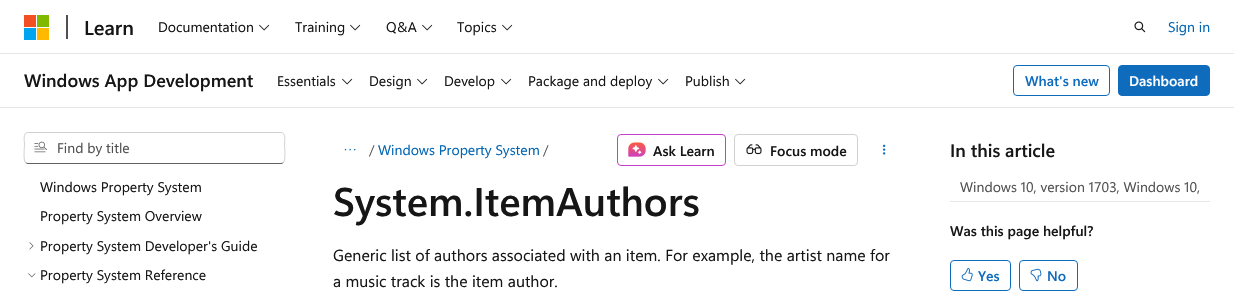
void draw(SkCanvas* canvas) {
	SkPaint paint;
	paint.setAntiAlias(true);
	auto svgPath = [&](const char* data, bool evenOdd = false) {
		SkPath result = *SkParsePath::FromSVGString(data);
		if (evenOdd) result.setFillType(SkPathFillType::kEvenOdd);
		return result;
	};
	canvas->clear(0xffffffff);
	paint.setColor(0xffe6e6e6);
	canvas->drawRect(SkRect::MakeXYWH(0, 53, 1234, 1), paint);
	paint.setColor(0xfff25022);
	canvas->drawRect(SkRect::MakeXYWH(24, 15, 12, 12), paint);
	paint.setColor(0xff7fba00);
	canvas->drawRect(SkRect::MakeXYWH(37, 15, 12, 12), paint);
	paint.setColor(0xff00a4ef);
	canvas->drawRect(SkRect::MakeXYWH(24, 28, 12, 12), paint);
	paint.setColor(0xffffb900);
	canvas->drawRect(SkRect::MakeXYWH(37, 28, 12, 12), paint);
	paint.setColor(0xff505050);
	canvas->drawRect(SkRect::MakeXYWH(66, 15, 2, 24), paint);
	SkFont f1(fontMgr->matchFamilyStyle("Segoe UI", SkFontStyle(600, SkFontStyle::kNormal_Width, SkFontStyle::kUpright_Slant)), 20);
	f1.setSubpixel(true);
	paint.setColor(0xff161616);
	canvas->drawString("Learn", 84, 35, f1, paint);
	SkFont f2(fontMgr->matchFamilyStyle("Segoe UI", SkFontStyle::Normal()), 14);
	f2.setSubpixel(true);
	canvas->drawString("Documentation", 158, 32, f2, paint);
	canvas->drawImageRect(SkImages::DeferredFromEncodedData(SkData::MakeFromFileName("img1.png")), SkRect::MakeXYWH(259, 24, 11, 7), SkSamplingOptions());
	canvas->drawString("Training", 295, 32, f2, paint);
	canvas->drawImageRect(SkImages::DeferredFromEncodedData(SkData::MakeFromFileName("img1.png")), SkRect::MakeXYWH(350, 24, 11, 7), SkSamplingOptions());
	canvas->drawString("Q&A", 386, 32, f2, paint);
	canvas->drawImageRect(SkImages::DeferredFromEncodedData(SkData::MakeFromFileName("img1.png")), SkRect::MakeXYWH(422, 24, 11, 7), SkSamplingOptions());
	canvas->drawString("Topics", 457, 32, f2, paint);
	canvas->drawImageRect(SkImages::DeferredFromEncodedData(SkData::MakeFromFileName("img1.png")), SkRect::MakeXYWH(502, 24, 11, 7), SkSamplingOptions());
	canvas->drawImageRect(SkImages::DeferredFromEncodedData(SkData::MakeFromFileName("img2.png")), SkRect::MakeXYWH(1134, 21, 12, 12), SkSamplingOptions());
	paint.setColor(0xff0065b3);
	canvas->drawString("Sign in", 1168, 32, f2, paint);
	paint.setColor(0xffe6e6e6);
	canvas->drawRect(SkRect::MakeXYWH(0, 107, 1234, 1), paint);
	SkFont f3(fontMgr->matchFamilyStyle("Segoe UI", SkFontStyle(600, SkFontStyle::kNormal_Width, SkFontStyle::kUpright_Slant)), 18);
	f3.setSubpixel(true);
	paint.setColor(0xff161616);
	canvas->drawString("Windows App Development", 24, 87, f3, paint);
	canvas->drawString("Essentials", 277, 86, f2, paint);
	canvas->drawImageRect(SkImages::DeferredFromEncodedData(SkData::MakeFromFileName("img1.png")), SkRect::MakeXYWH(342, 78, 11, 7), SkSamplingOptions());
	canvas->drawString("Design", 369, 86, f2, paint);
	canvas->drawImageRect(SkImages::DeferredFromEncodedData(SkData::MakeFromFileName("img1.png")), SkRect::MakeXYWH(417, 78, 11, 7), SkSamplingOptions());
	canvas->drawString("Develop", 444, 86, f2, paint);
	canvas->drawImageRect(SkImages::DeferredFromEncodedData(SkData::MakeFromFileName("img1.png")), SkRect::MakeXYWH(501, 78, 11, 7), SkSamplingOptions());
	canvas->drawString("Package and deploy", 528, 86, f2, paint);
	canvas->drawImageRect(SkImages::DeferredFromEncodedData(SkData::MakeFromFileName("img1.png")), SkRect::MakeXYWH(658, 78, 11, 7), SkSamplingOptions());
	canvas->drawString("Publish", 685, 86, f2, paint);
	canvas->drawImageRect(SkImages::DeferredFromEncodedData(SkData::MakeFromFileName("img1.png")), SkRect::MakeXYWH(735, 78, 11, 7), SkSamplingOptions());
	paint.setStroke(true);
	paint.setStrokeWidth(1);
	paint.setColor(0xff0f6cbd);
	canvas->drawRoundRect(SkRect::MakeXYWH(1013.5, 65.5, 96, 30), 3.5, 3.5, paint);
	SkFont f4(fontMgr->matchFamilyStyle("Segoe UI", SkFontStyle(600, SkFontStyle::kNormal_Width, SkFontStyle::kUpright_Slant)), 14);
	f4.setSubpixel(true);
	paint.setStroke(false);
	canvas->drawString("What's new", 1025, 86, f4, paint);
	canvas->drawRoundRect(SkRect::MakeXYWH(1118.5, 65.5, 91, 30), 3.5, 3.5, paint);
	paint.setStroke(true);
	canvas->drawRoundRect(SkRect::MakeXYWH(1118.5, 65.5, 91, 30), 3.5, 3.5, paint);
	paint.setStroke(false);
	paint.setColor(0xffffffff);
	canvas->drawString("Dashboard", 1129, 86, f4, paint);
	paint.setStroke(true);
	paint.setColor(0xff616161);
	canvas->drawPath(svgPath("M283.5 162.5C283 163 282 163.5 281 163.5H28C27 163.5 26 163 25.5 162.5"), paint);
	paint.setColor(0xffd1d1d1);
	canvas->drawPath(svgPath("M25.5 162.5C23 160 24.5 147.5 24.5 144C24.5 141.5 22.5 132.5 28 132.5H281C286.5 132.5 284.5 141.5 284.5 144C284.5 147.5 286 160 283.5 162.5"), paint);
	canvas->drawImageRect(SkImages::DeferredFromEncodedData(SkData::MakeFromFileName("img3.png")), SkRect::MakeXYWH(34, 141, 13, 12), SkSamplingOptions());
	paint.setStroke(false);
	paint.setColor(0xff505050);
	canvas->drawString("Find by title", 57, 153, f2, paint);
	paint.setColor(0xff161616);
	canvas->drawString("Windows Property System", 40, 192, f2, paint);
	canvas->drawString("Property System Overview", 40, 221, f2, paint);
	canvas->drawImageRect(SkImages::DeferredFromEncodedData(SkData::MakeFromFileName("img4.png")), SkRect::MakeXYWH(29, 242, 5, 8), SkSamplingOptions());
	canvas->drawString("Property System Developer's Guide", 40, 251, f2, paint);
	canvas->drawImageRect(SkImages::DeferredFromEncodedData(SkData::MakeFromFileName("img5.png")), SkRect::MakeXYWH(28, 273, 8, 5), SkSamplingOptions());
	canvas->drawString("Property System Reference", 40, 280, f2, paint);
	canvas->drawImageRect(SkImages::DeferredFromEncodedData(SkData::MakeFromFileName("img6.png")), SkRect::MakeXYWH(344, 148, 12, 3), SkSamplingOptions());
	paint.setColor(0xff505050);
	canvas->drawString("/", 369, 155, f2, paint);
	paint.setColor(0xff0065b3);
	canvas->drawString("Windows Property System", 378, 155, f2, paint);
	paint.setColor(0xff505050);
	canvas->drawString("/", 543, 155, f2, paint);
	paint.setStroke(true);
	paint.setColor(0xffc73ecc);
	canvas->drawRoundRect(SkRect::MakeXYWH(617.5, 134.5, 108, 31), 3.5, 3.5, paint);
	canvas->drawImageRect(SkImages::DeferredFromEncodedData(SkData::MakeFromFileName("img7.png")), SkRect::MakeXYWH(628, 142, 18, 15), SkSamplingOptions());
	paint.setStroke(false);
	paint.setColor(0xff161616);
	canvas->drawString("Ask Learn", 653, 156, f4, paint);
	paint.setStroke(true);
	paint.setColor(0xffd1d1d1);
	canvas->drawRoundRect(SkRect::MakeXYWH(734.5, 134.5, 123, 31), 3.5, 3.5, paint);
	canvas->drawImageRect(SkImages::DeferredFromEncodedData(SkData::MakeFromFileName("img8.png")), SkRect::MakeXYWH(746, 144, 16, 11), SkSamplingOptions());
	paint.setStroke(false);
	paint.setColor(0xff161616);
	canvas->drawString("Focus mode", 770, 156, f4, paint);
	canvas->drawImageRect(SkImages::DeferredFromEncodedData(SkData::MakeFromFileName("img9.png")), SkRect::MakeXYWH(883, 144, 3, 11), SkSamplingOptions());
	SkFont f5(fontMgr->matchFamilyStyle("Segoe UI", SkFontStyle(600, SkFontStyle::kNormal_Width, SkFontStyle::kUpright_Slant)), 40);
	f5.setSubpixel(true);
	canvas->drawString("System.ItemAuthors", 333, 216, f5, paint);
	SkFont f6(fontMgr->matchFamilyStyle("Segoe UI", SkFontStyle::Normal()), 16);
	f6.setSubpixel(true);
	canvas->drawString("Generic list of authors associated with an item. For example, the artist name for", 333, 261, f6, paint);
	canvas->drawString("a music track is the item author.", 333, 287, f6, paint);
	paint.setColor(0xffe6e6e6);
	canvas->drawRect(SkRect::MakeXYWH(950, 201, 260, 1), paint);
	paint.setColor(0xff161616);
	canvas->drawString("In this article", 950, 157, f3, paint);
	paint.setColor(0xff505050);
	canvas->drawString("Windows 10, version 1703, Windows 10,", 960, 192, f2, paint);
	paint.setColor(0xff161616);
	canvas->drawString("Was this page helpful?", 950, 236, f4, paint);
	paint.setStroke(true);
	paint.setColor(0xff0f6cbd);
	canvas->drawRoundRect(SkRect::MakeXYWH(950.5, 260.5, 60, 30), 3.5, 3.5, paint);
	canvas->drawImageRect(SkImages::DeferredFromEncodedData(SkData::MakeFromFileName("img10.png")), SkRect::MakeXYWH(961, 268, 12, 14), SkSamplingOptions());
	paint.setStroke(false);
	canvas->drawString("Yes", 978, 281, f4, paint);
	paint.setStroke(true);
	canvas->drawRoundRect(SkRect::MakeXYWH(1019.5, 260.5, 58, 30), 3.5, 3.5, paint);
	canvas->drawImageRect(SkImages::DeferredFromEncodedData(SkData::MakeFromFileName("img11.png")), SkRect::MakeXYWH(1030, 268, 12, 14), SkSamplingOptions());
	paint.setStroke(false);
	canvas->drawString("No", 1047, 281, f4, paint);
}
